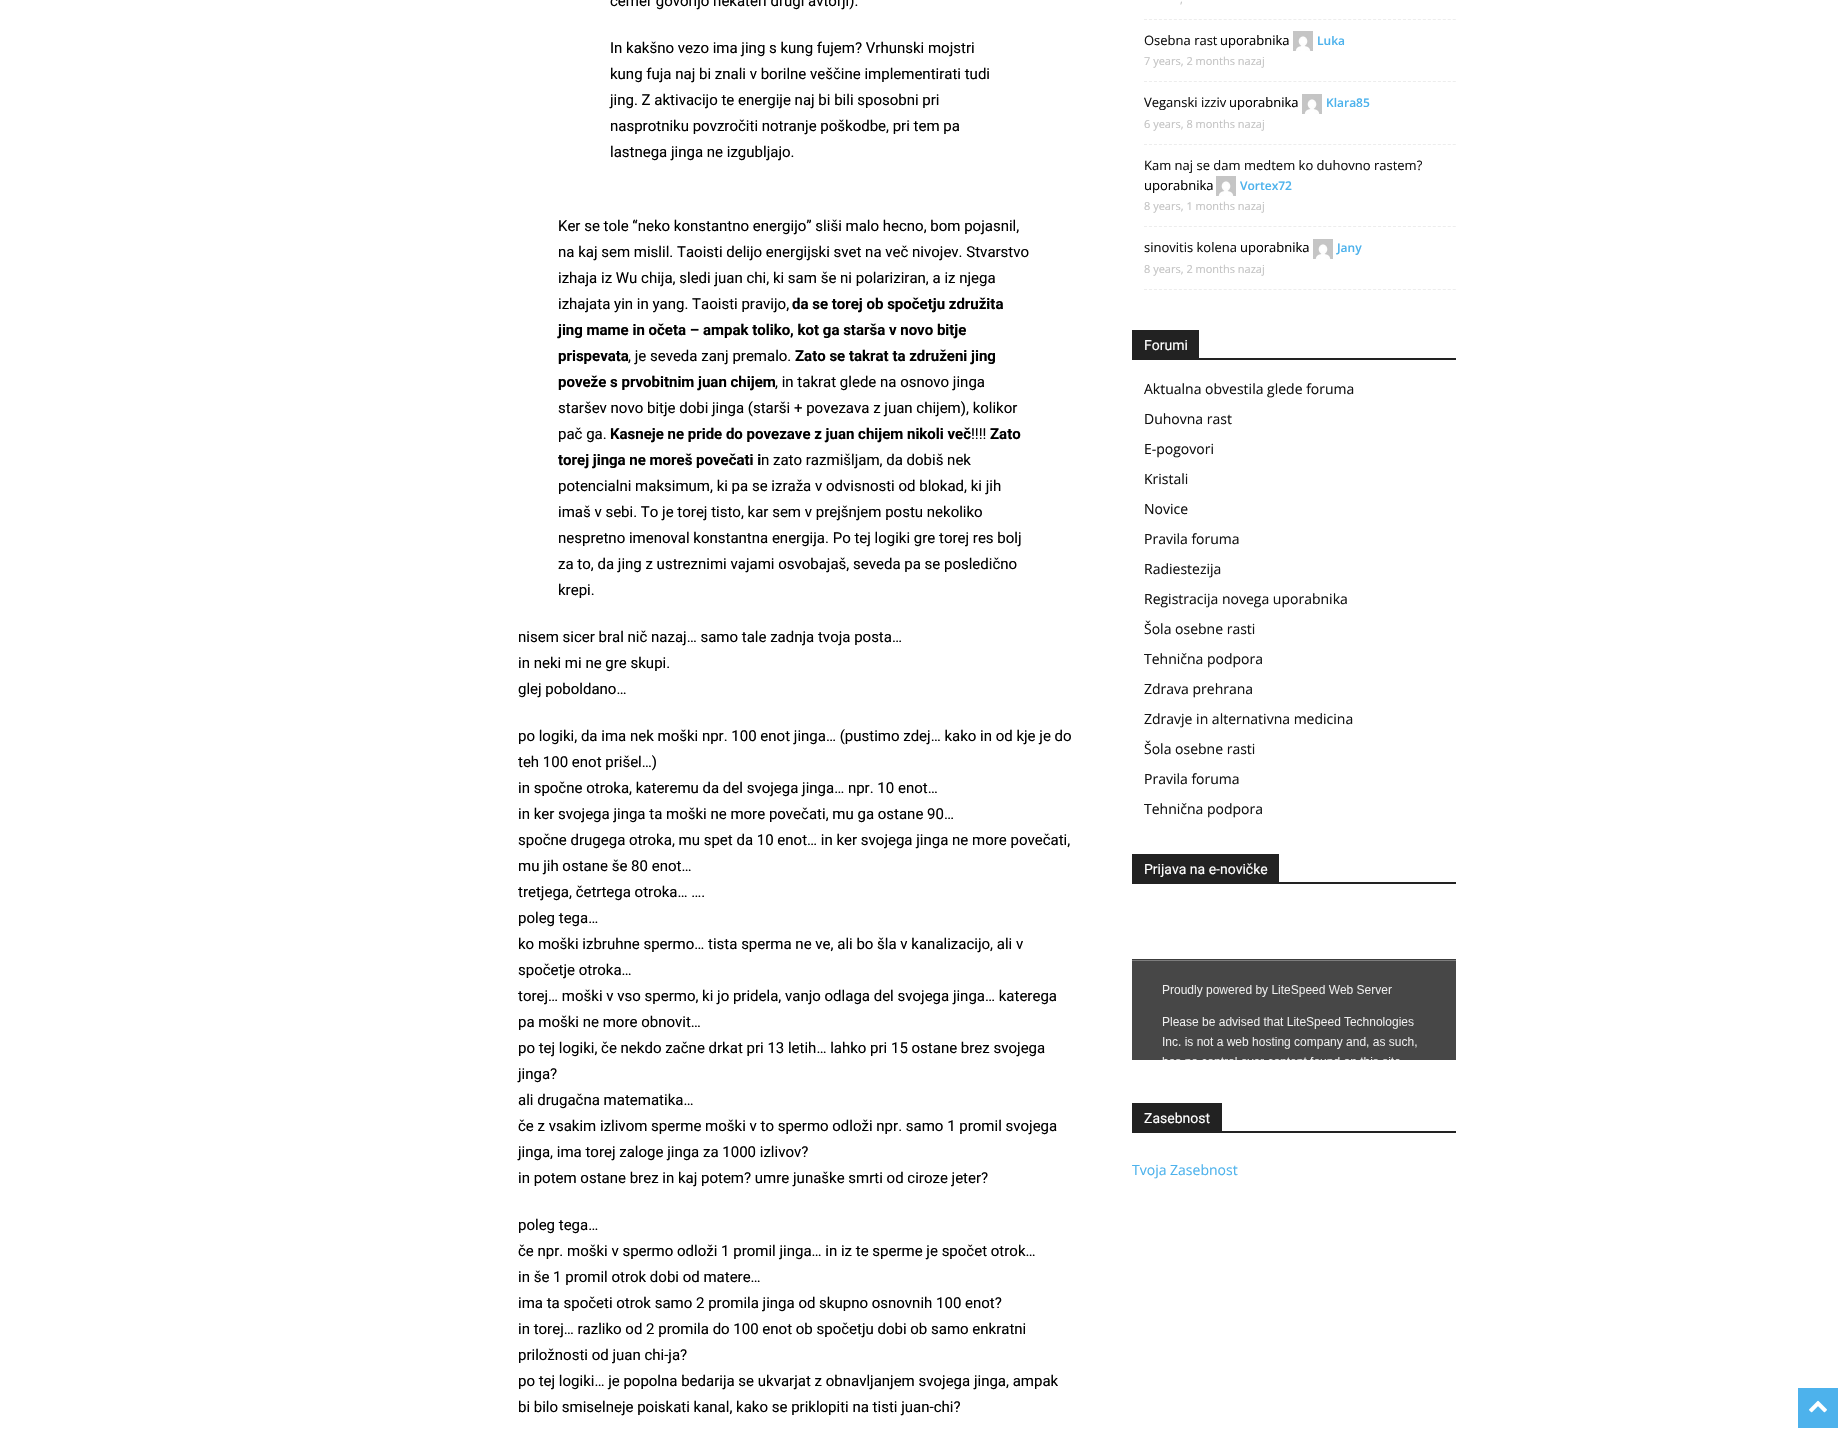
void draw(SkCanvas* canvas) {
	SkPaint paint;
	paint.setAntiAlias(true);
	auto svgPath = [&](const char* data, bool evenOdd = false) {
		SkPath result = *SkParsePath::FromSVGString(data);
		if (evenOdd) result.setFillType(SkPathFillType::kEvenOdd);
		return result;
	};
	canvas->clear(0xffffffff);
	SkFont f1(fontMgr->matchFamilyStyle("Roboto", SkFontStyle::Normal()), 15);
	f1.setSubpixel(true);
	paint.setColor(0xff000000);
	canvas->drawString("čemer govorijo nekateri drugi avtorji).", 610, 6, f1, paint);
	canvas->drawString("In kakšno vezo ima jing s kung fujem? Vrhunski mojstri", 610, 53, f1, paint);
	canvas->drawString("kung fuja naj bi znali v borilne veščine implementirati tudi", 610, 79, f1, paint);
	canvas->drawString("jing. Z aktivacijo te energije naj bi bili sposobni pri", 610, 105, f1, paint);
	canvas->drawString("nasprotniku povzročiti notranje poškodbe, pri tem pa", 610, 131, f1, paint);
	canvas->drawString("lastnega jinga ne izgubljajo.", 610, 157, f1, paint);
	canvas->drawString("Ker se tole “neko konstantno energijo” sliši malo hecno, bom pojasnil,", 558, 231, f1, paint);
	canvas->drawString("na kaj sem mislil. Taoisti delijo energijski svet na več nivojev. Stvarstvo", 558, 257, f1, paint);
	canvas->drawString("izhaja iz Wu chija, sledi juan chi, ki sam še ni polariziran, a iz njega", 558, 283, f1, paint);
	canvas->drawString("izhajata yin in yang. Taoisti pravijo,", 558, 309, f1, paint);
	SkFont f2(fontMgr->matchFamilyStyle("Roboto", SkFontStyle::Bold()), 15);
	f2.setSubpixel(true);
	canvas->drawString("da se torej ob spočetju združita", 792, 309, f2, paint);
	canvas->drawString("jing mame in očeta – ampak toliko, kot ga starša v novo bitje", 558, 335, f2, paint);
	canvas->drawString("prispevata", 558, 361, f2, paint);
	canvas->drawString(", je seveda zanj premalo.", 628, 361, f1, paint);
	canvas->drawString("Zato se takrat ta združeni jing", 795, 361, f2, paint);
	canvas->drawString("poveže s prvobitnim juan chijem", 558, 387, f2, paint);
	canvas->drawString(", in takrat glede na osnovo jinga", 775, 387, f1, paint);
	canvas->drawString("staršev novo bitje dobi jinga (starši + povezava z juan chijem), kolikor", 558, 413, f1, paint);
	canvas->drawString("pač ga.", 558, 439, f1, paint);
	canvas->drawString("Kasneje ne pride do povezave z juan chijem nikoli več", 610, 439, f2, paint);
	canvas->drawString("!!!!", 971, 439, f1, paint);
	canvas->drawString("Zato", 990, 439, f2, paint);
	canvas->drawString("torej jinga ne moreš povečati i", 558, 465, f2, paint);
	canvas->drawString("n zato razmišljam, da dobiš nek", 761, 465, f1, paint);
	canvas->drawString("potencialni maksimum, ki pa se izraža v odvisnosti od blokad, ki jih", 558, 491, f1, paint);
	canvas->drawString("imaš v sebi. To je torej tisto, kar sem v prejšnjem postu nekoliko", 558, 517, f1, paint);
	canvas->drawString("nespretno imenoval konstantna energija. Po tej logiki gre torej res bolj", 558, 543, f1, paint);
	canvas->drawString("za to, da jing z ustreznimi vajami osvobajaš, seveda pa se posledično", 558, 569, f1, paint);
	canvas->drawString("krepi.", 558, 595, f1, paint);
	canvas->drawString("nisem sicer bral nič nazaj… samo tale zadnja tvoja posta…", 518, 642, f1, paint);
	canvas->drawString("in neki mi ne gre skupi.", 518, 668, f1, paint);
	canvas->drawString("glej poboldano…", 518, 694, f1, paint);
	canvas->drawString("po logiki, da ima nek moški npr. 100 enot jinga… (pustimo zdej… kako in od kje je do", 518, 741, f1, paint);
	canvas->drawString("teh 100 enot prišel…)", 518, 767, f1, paint);
	canvas->drawString("in spočne otroka, kateremu da del svojega jinga… npr. 10 enot…", 518, 793, f1, paint);
	canvas->drawString("in ker svojega jinga ta moški ne more povečati, mu ga ostane 90…", 518, 819, f1, paint);
	canvas->drawString("spočne drugega otroka, mu spet da 10 enot… in ker svojega jinga ne more povečati,", 518, 845, f1, paint);
	canvas->drawString("mu jih ostane še 80 enot…", 518, 871, f1, paint);
	canvas->drawString("tretjega, četrtega otroka… ….", 518, 897, f1, paint);
	canvas->drawString("poleg tega…", 518, 923, f1, paint);
	canvas->drawString("ko moški izbruhne spermo… tista sperma ne ve, ali bo šla v kanalizacijo, ali v", 518, 949, f1, paint);
	canvas->drawString("spočetje otroka…", 518, 975, f1, paint);
	canvas->drawString("torej… moški v vso spermo, ki jo pridela, vanjo odlaga del svojega jinga… katerega", 518, 1001, f1, paint);
	canvas->drawString("pa moški ne more obnovit…", 518, 1027, f1, paint);
	canvas->drawString("po tej logiki, če nekdo začne drkat pri 13 letih… lahko pri 15 ostane brez svojega", 518, 1053, f1, paint);
	canvas->drawString("jinga?", 518, 1079, f1, paint);
	canvas->drawString("ali drugačna matematika…", 518, 1105, f1, paint);
	canvas->drawString("če z vsakim izlivom sperme moški v to spermo odloži npr. samo 1 promil svojega", 518, 1131, f1, paint);
	canvas->drawString("jinga, ima torej zaloge jinga za 1000 izlivov?", 518, 1157, f1, paint);
	canvas->drawString("in potem ostane brez in kaj potem? umre junaške smrti od ciroze jeter?", 518, 1183, f1, paint);
	canvas->drawString("poleg tega…", 518, 1230, f1, paint);
	canvas->drawString("če npr. moški v spermo odloži 1 promil jinga… in iz te sperme je spočet otrok…", 518, 1256, f1, paint);
	canvas->drawString("in še 1 promil otrok dobi od matere…", 518, 1282, f1, paint);
	canvas->drawString("ima ta spočeti otrok samo 2 promila jinga od skupno osnovnih 100 enot?", 518, 1308, f1, paint);
	canvas->drawString("in torej… razliko od 2 promila do 100 enot ob spočetju dobi ob samo enkratni", 518, 1334, f1, paint);
	canvas->drawString("priložnosti od juan chi-ja?", 518, 1360, f1, paint);
	canvas->drawString("po tej logiki… je popolna bedarija se ukvarjat z obnavljanjem svojega jinga, ampak", 518, 1386, f1, paint);
	canvas->drawString("bi bilo smiselneje poiskati kanal, kako se priklopiti na tisti juan-chi?", 518, 1412, f1, paint);
	paint.setStroke(true);
	paint.setStrokeWidth(1);
	paint.setColor(0xffededed);
	paint.setPathEffect(SkDashPathEffect::Make({{3, 1.98f}}, 0));
	canvas->drawPath(svgPath("M1144 19.5H1456"), paint);
	paint.setPathEffect(nullptr);
	SkFont f3(fontMgr->matchFamilyStyle("Open Sans", SkFontStyle::Normal()), 11);
	f3.setSubpixel(true);
	paint.setStroke(false);
	paint.setColor(0xffc3c3c3);
	canvas->drawString(",", 1180, 3, f3, paint);
	paint.setStroke(true);
	paint.setColor(0xffededed);
	paint.setPathEffect(SkDashPathEffect::Make({{3, 1.98f}}, 0));
	canvas->drawPath(svgPath("M1144 81.5H1456"), paint);
	paint.setPathEffect(nullptr);
	SkFont f4(fontMgr->matchFamilyStyle("Open Sans", SkFontStyle::Normal()), 13);
	f4.setSubpixel(true);
	paint.setStroke(false);
	paint.setColor(0xff111111);
	canvas->drawString("Osebna rast", 1144, 45, f4, paint);
	paint.setColor(0xff000000);
	canvas->drawString("uporabnika", 1220, 45, f4, paint);
	canvas->drawImageRect(SkImages::DeferredFromEncodedData(SkData::MakeFromFileName("img1.png")), SkRect::MakeXYWH(1293, 31, 20, 20), SkSamplingOptions());
	SkFont f5(fontMgr->matchFamilyStyle("Open Sans", SkFontStyle(600, SkFontStyle::kNormal_Width, SkFontStyle::kUpright_Slant)), 12);
	f5.setSubpixel(true);
	paint.setColor(0xff4db2ec);
	canvas->drawString("Luka", 1317, 45, f5, paint);
	paint.setColor(0xffc3c3c3);
	canvas->drawString("7 years, 2 months nazaj", 1144, 65, f3, paint);
	paint.setStroke(true);
	paint.setColor(0xffededed);
	paint.setPathEffect(SkDashPathEffect::Make({{3, 1.98f}}, 0));
	canvas->drawPath(svgPath("M1144 144.5H1456"), paint);
	paint.setPathEffect(nullptr);
	paint.setStroke(false);
	paint.setColor(0xff111111);
	canvas->drawString("Veganski izziv", 1144, 107, f4, paint);
	paint.setColor(0xff000000);
	canvas->drawString("uporabnika", 1229, 107, f4, paint);
	canvas->drawImageRect(SkImages::DeferredFromEncodedData(SkData::MakeFromFileName("img1.png")), SkRect::MakeXYWH(1302, 94, 20, 20), SkSamplingOptions());
	paint.setColor(0xff4db2ec);
	canvas->drawString("Klara85", 1326, 107, f5, paint);
	paint.setColor(0xffc3c3c3);
	canvas->drawString("6 years, 8 months nazaj", 1144, 128, f3, paint);
	paint.setStroke(true);
	paint.setColor(0xffededed);
	paint.setPathEffect(SkDashPathEffect::Make({{3, 1.98f}}, 0));
	canvas->drawPath(svgPath("M1144 226.5H1456"), paint);
	paint.setPathEffect(nullptr);
	paint.setStroke(false);
	paint.setColor(0xff111111);
	canvas->drawString("Kam naj se dam medtem ko duhovno rastem?", 1144, 170, f4, paint);
	paint.setColor(0xff000000);
	canvas->drawString("uporabnika", 1144, 190, f4, paint);
	canvas->drawImageRect(SkImages::DeferredFromEncodedData(SkData::MakeFromFileName("img1.png")), SkRect::MakeXYWH(1216, 176, 20, 20), SkSamplingOptions());
	paint.setColor(0xff4db2ec);
	canvas->drawString("Vortex72", 1240, 190, f5, paint);
	paint.setColor(0xffc3c3c3);
	canvas->drawString("8 years, 1 months nazaj", 1144, 210, f3, paint);
	paint.setStroke(true);
	paint.setColor(0xffededed);
	paint.setPathEffect(SkDashPathEffect::Make({{3, 1.98f}}, 0));
	canvas->drawPath(svgPath("M1144 289.5H1456"), paint);
	paint.setPathEffect(nullptr);
	paint.setStroke(false);
	paint.setColor(0xff111111);
	canvas->drawString("sinovitis kolena", 1144, 252, f4, paint);
	paint.setColor(0xff000000);
	canvas->drawString("uporabnika", 1240, 252, f4, paint);
	canvas->drawImageRect(SkImages::DeferredFromEncodedData(SkData::MakeFromFileName("img1.png")), SkRect::MakeXYWH(1313, 239, 20, 20), SkSamplingOptions());
	paint.setColor(0xff4db2ec);
	canvas->drawString("Jany", 1337, 252, f5, paint);
	paint.setColor(0xffc3c3c3);
	canvas->drawString("8 years, 2 months nazaj", 1144, 273, f3, paint);
	paint.setColor(0xff222222);
	canvas->drawRect(SkRect::MakeXYWH(1132, 358, 324, 2), paint);
	canvas->drawRect(SkRect::MakeXYWH(1132, 330, 67, 28), paint);
	SkFont f6(fontMgr->matchFamilyStyle("Roboto", SkFontStyle::Normal()), 14);
	f6.setSubpixel(true);
	paint.setColor(0xffffffff);
	canvas->drawString("Forumi", 1144, 350, f6, paint);
	SkFont f7(fontMgr->matchFamilyStyle("Open Sans", SkFontStyle::Normal()), 14);
	f7.setSubpixel(true);
	paint.setColor(0xff111111);
	canvas->drawString("Aktualna obvestila glede foruma", 1144, 394, f7, paint);
	canvas->drawString("Duhovna rast", 1144, 424, f7, paint);
	canvas->drawString("E-pogovori", 1144, 454, f7, paint);
	canvas->drawString("Kristali", 1144, 484, f7, paint);
	canvas->drawString("Novice", 1144, 514, f7, paint);
	canvas->drawString("Pravila foruma", 1144, 544, f7, paint);
	canvas->drawString("Radiestezija", 1144, 574, f7, paint);
	canvas->drawString("Registracija novega uporabnika", 1144, 604, f7, paint);
	canvas->drawString("Šola osebne rasti", 1144, 634, f7, paint);
	canvas->drawString("Tehnična podpora", 1144, 664, f7, paint);
	canvas->drawString("Zdrava prehrana", 1144, 694, f7, paint);
	canvas->drawString("Zdravje in alternativna medicina", 1144, 724, f7, paint);
	canvas->drawString("Šola osebne rasti", 1144, 754, f7, paint);
	canvas->drawString("Pravila foruma", 1144, 784, f7, paint);
	canvas->drawString("Tehnična podpora", 1144, 814, f7, paint);
	paint.setColor(0xff222222);
	canvas->drawRect(SkRect::MakeXYWH(1132, 882, 324, 2), paint);
	canvas->drawRect(SkRect::MakeXYWH(1132, 854, 147, 28), paint);
	paint.setColor(0xffffffff);
	canvas->drawString("Prijava na e-novičke", 1144, 874, f6, paint);
	canvas->drawImageRect(SkImages::DeferredFromEncodedData(SkData::MakeFromFileName("img2.png")), SkRect::MakeXYWH(1132, 959, 324, 101), SkSamplingOptions());
	paint.setColor(0xff222222);
	canvas->drawRect(SkRect::MakeXYWH(1132, 1131, 324, 2), paint);
	canvas->drawRect(SkRect::MakeXYWH(1132, 1103, 90, 28), paint);
	paint.setColor(0xffffffff);
	canvas->drawString("Zasebnost", 1144, 1123, f6, paint);
	paint.setColor(0xff4db2ec);
	canvas->drawString("Tvoja Zasebnost", 1132, 1175, f7, paint);
	canvas->drawRect(SkRect::MakeXYWH(1798, 1388, 40, 40), paint);
	canvas->drawImageRect(SkImages::DeferredFromEncodedData(SkData::MakeFromFileName("img3.png")), SkRect::MakeXYWH(1809, 1400, 18, 13), SkSamplingOptions());
}
